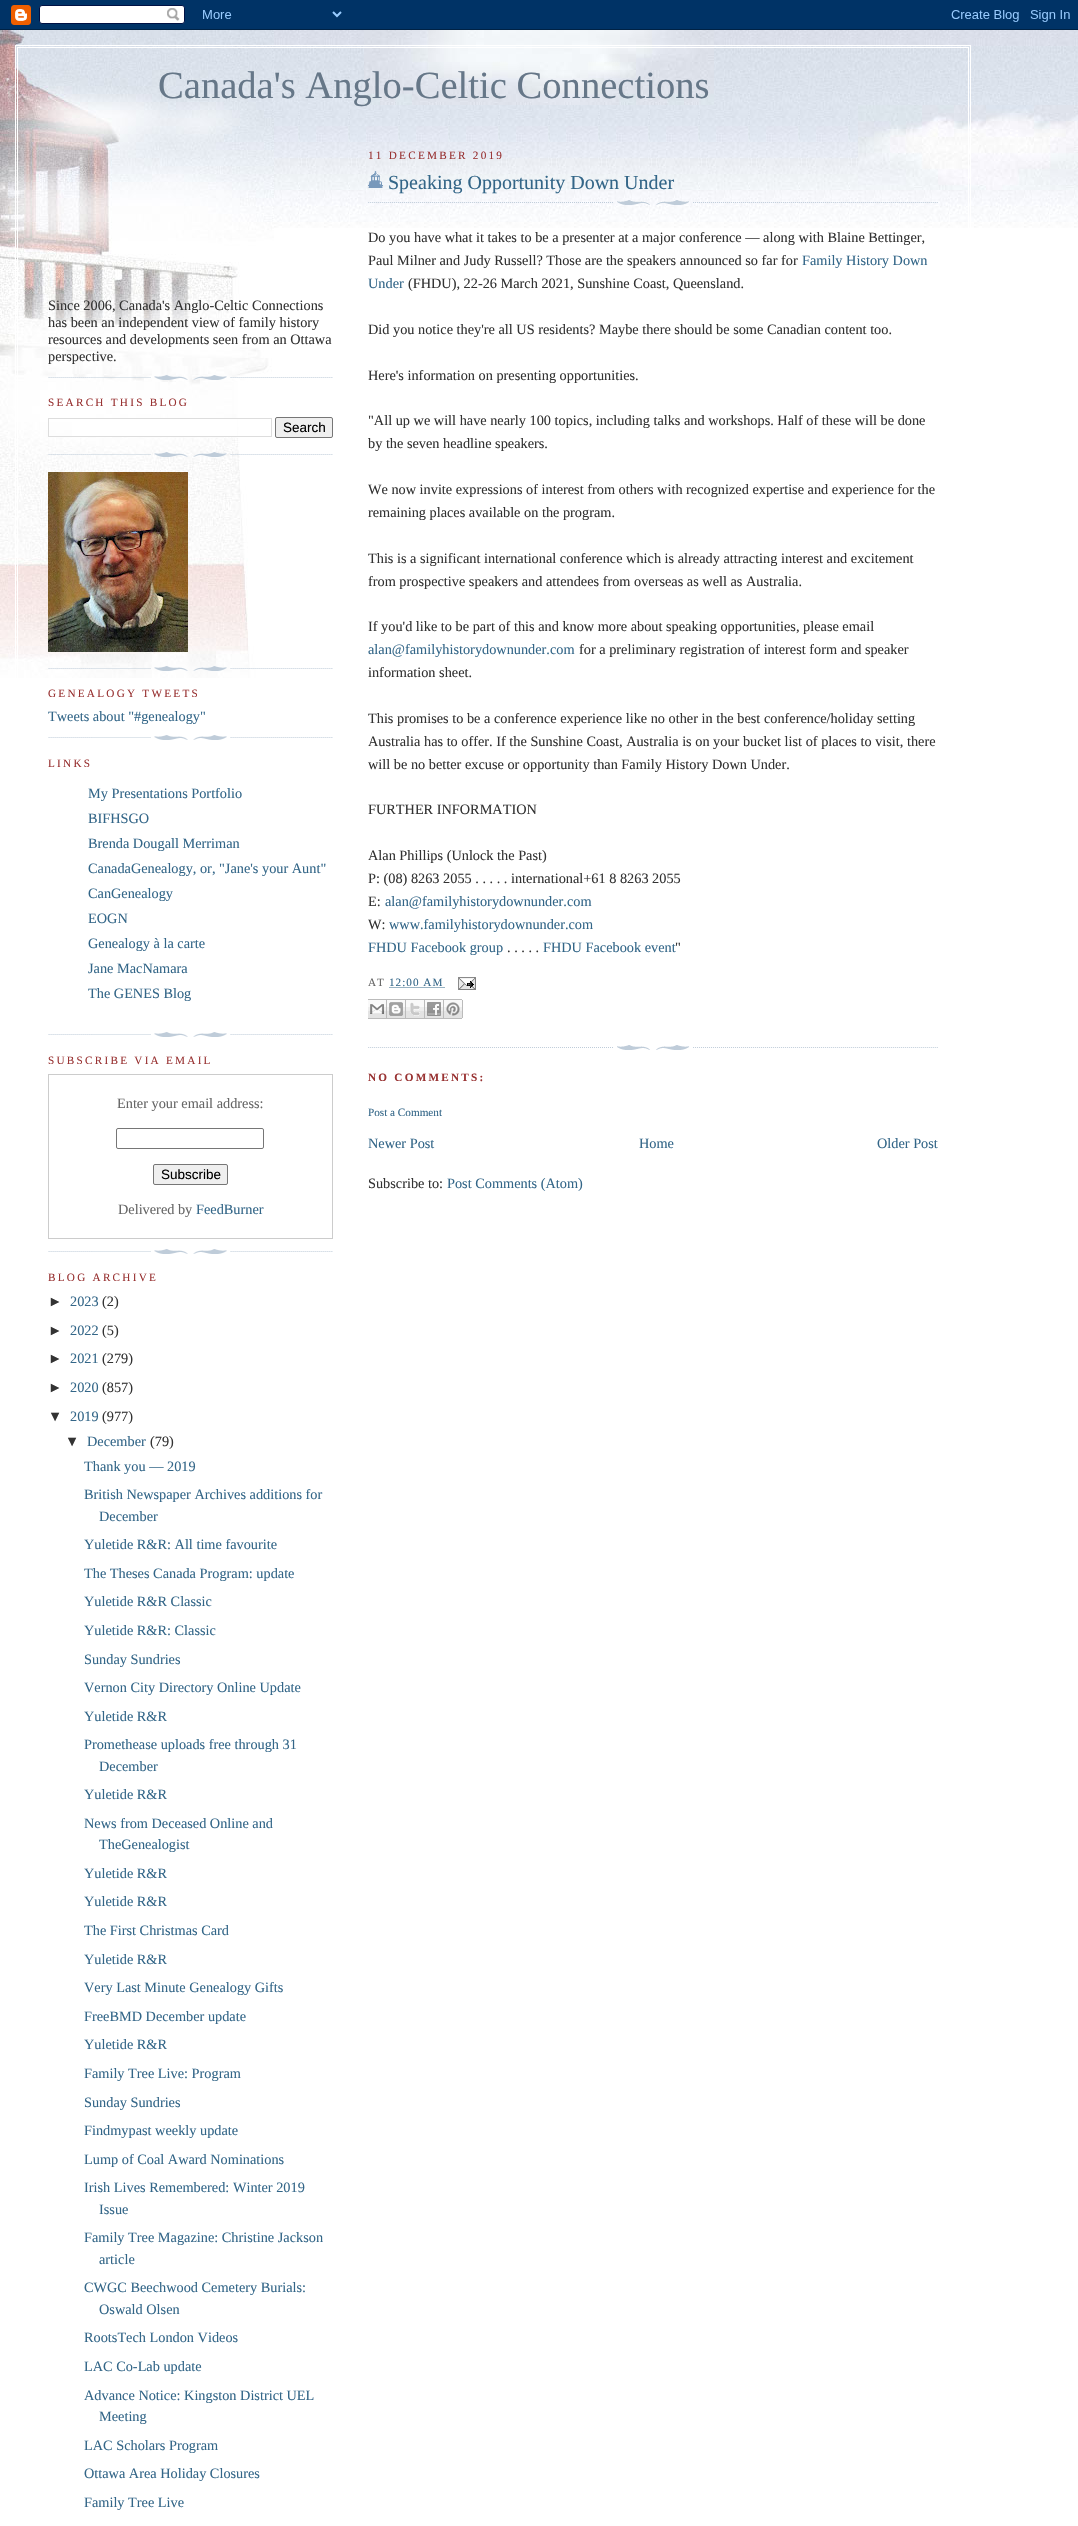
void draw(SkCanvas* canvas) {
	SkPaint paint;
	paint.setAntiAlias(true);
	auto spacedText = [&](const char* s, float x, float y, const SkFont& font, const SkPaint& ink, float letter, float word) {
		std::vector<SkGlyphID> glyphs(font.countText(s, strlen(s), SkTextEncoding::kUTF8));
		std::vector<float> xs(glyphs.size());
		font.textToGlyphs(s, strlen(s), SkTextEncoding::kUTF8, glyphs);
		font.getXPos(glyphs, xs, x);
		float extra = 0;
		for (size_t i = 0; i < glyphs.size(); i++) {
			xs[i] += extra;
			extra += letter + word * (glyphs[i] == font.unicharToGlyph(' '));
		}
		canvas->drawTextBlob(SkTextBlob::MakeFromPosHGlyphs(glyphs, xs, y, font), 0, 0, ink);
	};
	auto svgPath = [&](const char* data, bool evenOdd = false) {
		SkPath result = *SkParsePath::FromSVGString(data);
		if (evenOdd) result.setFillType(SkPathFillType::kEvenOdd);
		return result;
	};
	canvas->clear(0xffffffff);
	canvas->drawImageRect(SkImages::DeferredFromEncodedData(SkData::MakeFromFileName("img1.png")), SkRect::MakeXYWH(0, 0, 1078, 30), SkSamplingOptions());
	canvas->drawImageRect(SkImages::DeferredFromEncodedData(SkData::MakeFromFileName("img2.png")), SkRect::MakeXYWH(274, 30, 804, 198), SkSamplingOptions());
	canvas->drawImageRect(SkImages::DeferredFromEncodedData(SkData::MakeFromFileName("img3.png")), SkRect::MakeXYWH(0, 30, 274, 648), SkSamplingOptions());
	canvas->drawImageRect(SkImages::DeferredFromEncodedData(SkData::MakeFromFileName("img4.png")), SkRect::MakeXYWH(858, 105, 220, 85), SkSamplingOptions());
	canvas->drawImageRect(SkImages::DeferredFromEncodedData(SkData::MakeFromFileName("img5.png")), SkRect::MakeXYWH(364, 30, 350, 75), SkSamplingOptions());
	paint.setStroke(true);
	paint.setStrokeWidth(1);
	paint.setColor(0xffffffff);
	canvas->drawRect(SkRect::MakeXYWH(15.5, 45.5, 955, 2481), paint);
	canvas->drawRect(SkRect::MakeXYWH(17.5, 47.5, 951, 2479), paint);
	SkFont f1(fontMgr->matchFamilyStyle("Liberation Serif", SkFontStyle::Normal()), 38.6);
	f1.setSubpixel(true);
	paint.setStroke(false);
	paint.setColor(0xff667788);
	canvas->drawString("Canada's Anglo-Celtic Connections", 158, 98, f1, paint);
	canvas->drawImageRect(SkImages::DeferredFromEncodedData(SkData::MakeFromFileName("img6.png")), SkRect::MakeXYWH(48, 375, 285, 5), SkSamplingOptions());
	SkFont f2(fontMgr->matchFamilyStyle("Liberation Serif", SkFontStyle::Normal()), 14.3);
	f2.setSubpixel(true);
	paint.setColor(0xff333333);
	canvas->drawString("Since 2006, Canada's Anglo-Celtic Connections", 48, 310, f2, paint);
	canvas->drawString("has been an independent view of family history", 48, 327, f2, paint);
	canvas->drawString("resources and developments seen from an Ottawa", 48, 344, f2, paint);
	canvas->drawString("perspective.", 48, 361, f2, paint);
	canvas->drawImageRect(SkImages::DeferredFromEncodedData(SkData::MakeFromFileName("img7.png")), SkRect::MakeXYWH(48, 452, 285, 5), SkSamplingOptions());
	SkFont f3(fontMgr->matchFamilyStyle("Liberation Serif", SkFontStyle::Normal()), 11.2);
	f3.setSubpixel(true);
	paint.setColor(0xff993333);
	spacedText("SEARCH THIS BLOG", 48, 406, f3, paint, 2.25, 0);
	paint.setColor(0xffffffff);
	canvas->drawRect(SkRect::MakeXYWH(72, 419, 165, 17), paint);
	paint.setStroke(true);
	paint.setColor(0xffdddddd);
	canvas->drawRect(SkRect::MakeXYWH(48.5, 418.5, 223, 18), paint);
	paint.setStroke(false);
	paint.setColor(0xffefefef);
	canvas->drawRoundRect(SkRect::MakeXYWH(275.5, 417.5, 57, 20), 1.5, 1.5, paint);
	paint.setStroke(true);
	paint.setColor(0xff767676);
	canvas->drawRoundRect(SkRect::MakeXYWH(275.5, 417.5, 57, 20), 1.5, 1.5, paint);
	SkFont f4(fontMgr->matchFamilyStyle("Liberation Sans", SkFontStyle::Normal()), 13.5);
	f4.setSubpixel(true);
	paint.setStroke(false);
	paint.setColor(0xff000000);
	canvas->drawString("Search", 283, 432, f4, paint);
	canvas->drawImageRect(SkImages::DeferredFromEncodedData(SkData::MakeFromFileName("img8.png")), SkRect::MakeXYWH(48, 666, 285, 5), SkSamplingOptions());
	canvas->drawImageRect(SkImages::DeferredFromEncodedData(SkData::MakeFromFileName("img9.png")), SkRect::MakeXYWH(48, 472, 140, 180), SkSamplingOptions());
	canvas->drawImageRect(SkImages::DeferredFromEncodedData(SkData::MakeFromFileName("img10.png")), SkRect::MakeXYWH(48, 735, 285, 5), SkSamplingOptions());
	paint.setColor(0xff993333);
	spacedText("GENEALOGY TWEETS", 48, 697, f3, paint, 2.25, 0);
	paint.setColor(0xff336688);
	canvas->drawString("Tweets about \"#genealogy\"", 48, 721, f2, paint);
	canvas->drawImageRect(SkImages::DeferredFromEncodedData(SkData::MakeFromFileName("img10.png")), SkRect::MakeXYWH(48, 1032, 285, 5), SkSamplingOptions());
	paint.setColor(0xff993333);
	spacedText("LINKS", 48, 767, f3, paint, 2.25, 0);
	paint.setColor(0xff336688);
	canvas->drawString("My Presentations Portfolio", 88, 798, f2, paint);
	canvas->drawString("BIFHSGO", 88, 823, f2, paint);
	canvas->drawString("Brenda Dougall Merriman", 88, 848, f2, paint);
	canvas->drawString("CanadaGenealogy, or, \"Jane's your Aunt\"", 88, 873, f2, paint);
	canvas->drawString("CanGenealogy", 88, 898, f2, paint);
	canvas->drawString("EOGN", 88, 923, f2, paint);
	canvas->drawString("Genealogy à la carte", 88, 948, f2, paint);
	canvas->drawString("Jane MacNamara", 88, 973, f2, paint);
	canvas->drawString("The GENES Blog", 88, 998, f2, paint);
	canvas->drawImageRect(SkImages::DeferredFromEncodedData(SkData::MakeFromFileName("img10.png")), SkRect::MakeXYWH(48, 1249, 285, 5), SkSamplingOptions());
	paint.setColor(0xff993333);
	spacedText("SUBSCRIBE VIA EMAIL", 48, 1064, f3, paint, 2.25, 0);
	paint.setStroke(true);
	paint.setColor(0xffcccccc);
	canvas->drawRect(SkRect::MakeXYWH(48.5, 1074.5, 284, 164), paint);
	paint.setStroke(false);
	paint.setColor(0xff666666);
	canvas->drawString("Enter your email address:", 117, 1108, f2, paint);
	paint.setStroke(true);
	paint.setColor(0xff767676);
	canvas->drawRoundRect(SkRect::MakeXYWH(116.5, 1128.5, 147, 20), 1.5, 1.5, paint);
	paint.setStroke(false);
	paint.setColor(0xffefefef);
	canvas->drawRoundRect(SkRect::MakeXYWH(153.5, 1164.5, 74, 20), 1.5, 1.5, paint);
	paint.setStroke(true);
	paint.setColor(0xff767676);
	canvas->drawRoundRect(SkRect::MakeXYWH(153.5, 1164.5, 74, 20), 1.5, 1.5, paint);
	paint.setStroke(false);
	paint.setColor(0xff000000);
	canvas->drawString("Subscribe", 161, 1179, f4, paint);
	paint.setColor(0xff666666);
	canvas->drawString("Delivered by", 118, 1214, f2, paint);
	paint.setColor(0xff336688);
	canvas->drawString("FeedBurner", 196, 1214, f2, paint);
	paint.setColor(0xff993333);
	spacedText("BLOG ARCHIVE", 48, 1281, f3, paint, 2.25, 0);
	SkFont f5(fontMgr->matchFamilyStyle("Liberation Sans", SkFontStyle::Normal()), 14.3);
	f5.setSubpixel(true);
	paint.setColor(0xff333333);
	canvas->drawString("►", 48, 1306, f5, paint);
	paint.setColor(0xff336688);
	canvas->drawString("2023", 70, 1306, f2, paint);
	paint.setColor(0xff333333);
	canvas->drawString("(2)", 102, 1306, f2, paint);
	canvas->drawString("►", 48, 1335, f5, paint);
	paint.setColor(0xff336688);
	canvas->drawString("2022", 70, 1335, f2, paint);
	paint.setColor(0xff333333);
	canvas->drawString("(5)", 102, 1335, f2, paint);
	canvas->drawString("►", 48, 1363, f5, paint);
	paint.setColor(0xff336688);
	canvas->drawString("2021", 70, 1363, f2, paint);
	paint.setColor(0xff333333);
	canvas->drawString("(279)", 102, 1363, f2, paint);
	canvas->drawString("►", 48, 1392, f5, paint);
	paint.setColor(0xff336688);
	canvas->drawString("2020", 70, 1392, f2, paint);
	paint.setColor(0xff333333);
	canvas->drawString("(857)", 102, 1392, f2, paint);
	canvas->drawString("▼", 48, 1421, f5, paint);
	paint.setColor(0xff336688);
	canvas->drawString("2019", 70, 1421, f2, paint);
	paint.setColor(0xff333333);
	canvas->drawString("(977)", 102, 1421, f2, paint);
	canvas->drawString("▼", 65, 1446, f5, paint);
	paint.setColor(0xff336688);
	canvas->drawString("December", 87, 1446, f2, paint);
	paint.setColor(0xff333333);
	canvas->drawString("(79)", 150, 1446, f2, paint);
	paint.setColor(0xff336688);
	canvas->drawString("Thank you — 2019", 84, 1471, f2, paint);
	canvas->drawString("British Newspaper Archives additions for", 84, 1499, f2, paint);
	canvas->drawString("December", 99, 1521, f2, paint);
	canvas->drawString("Yuletide R&R: All time favourite", 84, 1549, f2, paint);
	canvas->drawString("The Theses Canada Program: update", 84, 1578, f2, paint);
	canvas->drawString("Yuletide R&R Classic", 84, 1606, f2, paint);
	canvas->drawString("Yuletide R&R: Classic", 84, 1635, f2, paint);
	canvas->drawString("Sunday Sundries", 84, 1664, f2, paint);
	canvas->drawString("Vernon City Directory Online Update", 84, 1692, f2, paint);
	canvas->drawString("Yuletide R&R", 84, 1721, f2, paint);
	canvas->drawString("Promethease uploads free through 31", 84, 1749, f2, paint);
	canvas->drawString("December", 99, 1771, f2, paint);
	canvas->drawString("Yuletide R&R", 84, 1799, f2, paint);
	canvas->drawString("News from Deceased Online and", 84, 1828, f2, paint);
	canvas->drawString("TheGenealogist", 99, 1849, f2, paint);
	canvas->drawString("Yuletide R&R", 84, 1878, f2, paint);
	canvas->drawString("Yuletide R&R", 84, 1906, f2, paint);
	canvas->drawString("The First Christmas Card", 84, 1935, f2, paint);
	canvas->drawString("Yuletide R&R", 84, 1964, f2, paint);
	canvas->drawString("Very Last Minute Genealogy Gifts", 84, 1992, f2, paint);
	canvas->drawString("FreeBMD December update", 84, 2021, f2, paint);
	canvas->drawString("Yuletide R&R", 84, 2049, f2, paint);
	canvas->drawString("Family Tree Live: Program", 84, 2078, f2, paint);
	canvas->drawString("Sunday Sundries", 84, 2107, f2, paint);
	canvas->drawString("Findmypast weekly update", 84, 2135, f2, paint);
	canvas->drawString("Lump of Coal Award Nominations", 84, 2164, f2, paint);
	canvas->drawString("Irish Lives Remembered: Winter 2019", 84, 2192, f2, paint);
	canvas->drawString("Issue", 99, 2214, f2, paint);
	canvas->drawString("Family Tree Magazine: Christine Jackson", 84, 2242, f2, paint);
	canvas->drawString("article", 99, 2264, f2, paint);
	canvas->drawString("CWGC Beechwood Cemetery Burials:", 84, 2292, f2, paint);
	canvas->drawString("Oswald Olsen", 99, 2314, f2, paint);
	canvas->drawString("RootsTech London Videos", 84, 2342, f2, paint);
	canvas->drawString("LAC Co-Lab update", 84, 2371, f2, paint);
	canvas->drawString("Advance Notice: Kingston District UEL", 84, 2400, f2, paint);
	canvas->drawString("Meeting", 99, 2421, f2, paint);
	canvas->drawString("LAC Scholars Program", 84, 2450, f2, paint);
	canvas->drawString("Ottawa Area Holiday Closures", 84, 2478, f2, paint);
	canvas->drawString("Family Tree Live", 84, 2507, f2, paint);
	paint.setColor(0xff993333);
	spacedText("11 DECEMBER 2019", 368, 159, f3, paint, 2.25, 0);
	canvas->drawImageRect(SkImages::DeferredFromEncodedData(SkData::MakeFromFileName("img11.png")), SkRect::MakeXYWH(368, 171, 15, 17), SkSamplingOptions());
	SkFont f6(fontMgr->matchFamilyStyle("Liberation Serif", SkFontStyle::Normal()), 20);
	f6.setSubpixel(true);
	paint.setColor(0xff336688);
	canvas->drawString("Speaking Opportunity Down Under", 388, 189, f6, paint);
	canvas->drawImageRect(SkImages::DeferredFromEncodedData(SkData::MakeFromFileName("img12.png")), SkRect::MakeXYWH(368, 200, 570, 5), SkSamplingOptions());
	paint.setColor(0xff333333);
	canvas->drawString("Do you have what it takes to be a presenter at a major conference — along with Blaine Bettinger,", 368, 242, f2, paint);
	canvas->drawString("Paul Milner and Judy Russell? Those are the speakers announced so far for", 368, 265, f2, paint);
	paint.setColor(0xff336688);
	canvas->drawString("Family History Down", 802, 265, f2, paint);
	canvas->drawString("Under", 368, 288, f2, paint);
	paint.setColor(0xff333333);
	canvas->drawString("(FHDU), 22-26 March 2021, Sunshine Coast, Queensland.", 408, 288, f2, paint);
	canvas->drawString("Did you notice they're all US residents? Maybe there should be some Canadian content too.", 368, 334, f2, paint);
	canvas->drawString("Here's information on presenting opportunities.", 368, 380, f2, paint);
	canvas->drawString("\"All up we will have nearly 100 topics, including talks and workshops. Half of these will be done", 368, 425, f2, paint);
	canvas->drawString("by the seven headline speakers.", 368, 448, f2, paint);
	canvas->drawString("We now invite expressions of interest from others with recognized expertise and experience for the", 368, 494, f2, paint);
	canvas->drawString("remaining places available on the program.", 368, 517, f2, paint);
	canvas->drawString("This is a significant international conference which is already attracting interest and excitement", 368, 563, f2, paint);
	canvas->drawString("from prospective speakers and attendees from overseas as well as Australia.", 368, 586, f2, paint);
	canvas->drawString("If you'd like to be part of this and know more about speaking opportunities, please email", 368, 631, f2, paint);
	paint.setColor(0xff336688);
	canvas->drawString("alan@familyhistorydownunder.com", 368, 654, f2, paint);
	paint.setColor(0xff333333);
	canvas->drawString("for a preliminary registration of interest form and speaker", 579, 654, f2, paint);
	canvas->drawString("information sheet.", 368, 677, f2, paint);
	canvas->drawString("This promises to be a conference experience like no other in the best conference/holiday setting", 368, 723, f2, paint);
	canvas->drawString("Australia has to offer. If the Sunshine Coast, Australia is on your bucket list of places to visit, there", 368, 746, f2, paint);
	canvas->drawString("will be no better excuse or opportunity than Family History Down Under.", 368, 769, f2, paint);
	canvas->drawString("FURTHER INFORMATION", 368, 814, f2, paint);
	canvas->drawString("Alan Phillips (Unlock the Past)", 368, 860, f2, paint);
	canvas->drawString("P: (08) 8263 2055 . . . . . international+61 8 8263 2055", 368, 883, f2, paint);
	canvas->drawString("E:", 368, 906, f2, paint);
	paint.setColor(0xff336688);
	canvas->drawString("alan@familyhistorydownunder.com", 385, 906, f2, paint);
	paint.setColor(0xff333333);
	canvas->drawString("W:", 368, 929, f2, paint);
	paint.setColor(0xff336688);
	canvas->drawString("www.familyhistorydownunder.com", 389, 929, f2, paint);
	canvas->drawString("FHDU Facebook group", 368, 952, f2, paint);
	canvas->drawString("FHDU Facebook event", 543, 952, f2, paint);
	paint.setColor(0xff333333);
	canvas->drawString("\"", 675, 952, f2, paint);
	canvas->drawString(". . . . .", 507, 952, f2, paint);
	paint.setColor(0xff666666);
	spacedText("AT", 368, 986, f3, paint, 1, 0);
	paint.setColor(0xff336688);
	spacedText("12:00 AM", 389, 986, f3, paint, 1, 0);
	paint.setStroke(true);
	paint.setPathEffect(SkDashPathEffect::Make({{1, 1}}, 0));
	canvas->drawPath(svgPath("M389.5 987.5H444.5"), paint);
	paint.setPathEffect(nullptr);
	canvas->drawImageRect(SkImages::DeferredFromEncodedData(SkData::MakeFromFileName("img13.png")), SkRect::MakeXYWH(458, 977, 18, 13), SkSamplingOptions());
	canvas->drawImageRect(SkImages::DeferredFromEncodedData(SkData::MakeFromFileName("img14.png")), SkRect::MakeXYWH(368, 999, 19, 20), SkSamplingOptions());
	canvas->drawImageRect(SkImages::DeferredFromEncodedData(SkData::MakeFromFileName("img15.png")), SkRect::MakeXYWH(387, 999, 19, 20), SkSamplingOptions());
	canvas->drawImageRect(SkImages::DeferredFromEncodedData(SkData::MakeFromFileName("img16.png")), SkRect::MakeXYWH(406, 999, 19, 20), SkSamplingOptions());
	canvas->drawImageRect(SkImages::DeferredFromEncodedData(SkData::MakeFromFileName("img17.png")), SkRect::MakeXYWH(425, 999, 19, 20), SkSamplingOptions());
	canvas->drawImageRect(SkImages::DeferredFromEncodedData(SkData::MakeFromFileName("img18.png")), SkRect::MakeXYWH(444, 999, 19, 20), SkSamplingOptions());
	canvas->drawImageRect(SkImages::DeferredFromEncodedData(SkData::MakeFromFileName("img19.png")), SkRect::MakeXYWH(368, 1045, 570, 5), SkSamplingOptions());
	SkFont f7(fontMgr->matchFamilyStyle("Liberation Serif", SkFontStyle::Bold()), 11.2);
	f7.setSubpixel(true);
	paint.setStroke(false);
	paint.setColor(0xff993333);
	spacedText("NO COMMENTS:", 368, 1081, f7, paint, 2.25, 0);
	paint.setColor(0xff336688);
	canvas->drawString("Post a Comment", 368, 1116, f3, paint);
	canvas->drawString("Newer Post", 368, 1148, f2, paint);
	canvas->drawString("Home", 639, 1148, f2, paint);
	canvas->drawString("Older Post", 877, 1148, f2, paint);
	paint.setColor(0xff333333);
	canvas->drawString("Subscribe to:", 368, 1188, f2, paint);
	paint.setColor(0xff336688);
	canvas->drawString("Post Comments (Atom)", 447, 1188, f2, paint);
}
